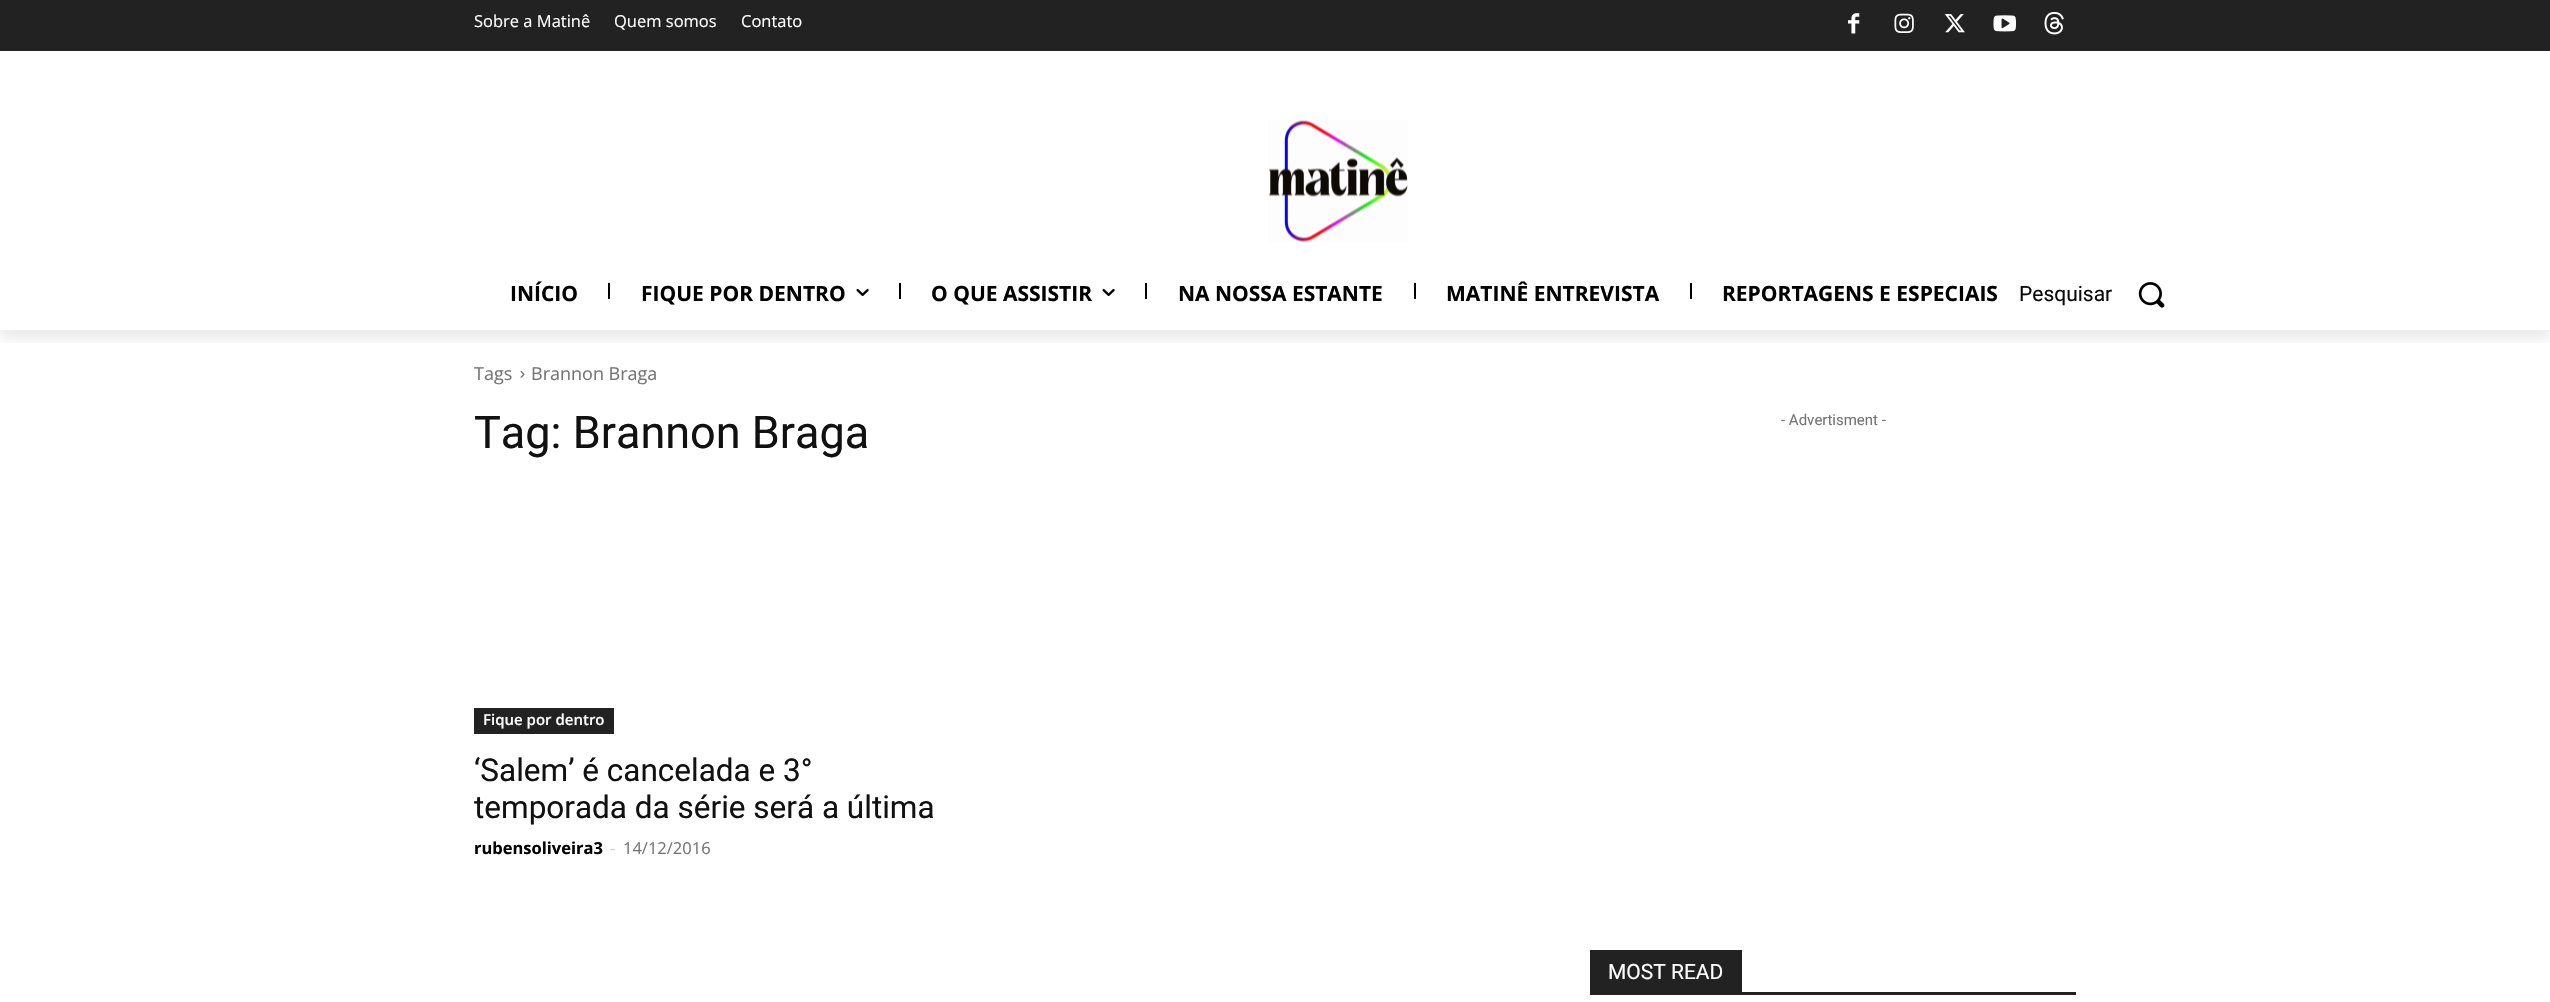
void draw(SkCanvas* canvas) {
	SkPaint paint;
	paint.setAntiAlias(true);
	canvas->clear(0xffffffff);
	paint.setColor(0xff222222);
	canvas->drawRect(SkRect::MakeXYWH(0, 0, 2550, 51), paint);
	canvas->drawImageRect(SkImages::DeferredFromEncodedData(SkData::MakeFromFileName("img1.png")), SkRect::MakeXYWH(1848, 13, 12, 21), SkSamplingOptions());
	canvas->drawImageRect(SkImages::DeferredFromEncodedData(SkData::MakeFromFileName("img2.png")), SkRect::MakeXYWH(1894, 13, 20, 20), SkSamplingOptions());
	canvas->drawImageRect(SkImages::DeferredFromEncodedData(SkData::MakeFromFileName("img3.png")), SkRect::MakeXYWH(1944, 14, 21, 19), SkSamplingOptions());
	canvas->drawImageRect(SkImages::DeferredFromEncodedData(SkData::MakeFromFileName("img4.png")), SkRect::MakeXYWH(1993, 15, 23, 17), SkSamplingOptions());
	canvas->drawImageRect(SkImages::DeferredFromEncodedData(SkData::MakeFromFileName("img5.png")), SkRect::MakeXYWH(2044, 11, 20, 24), SkSamplingOptions());
	canvas->drawImageRect(SkImages::DeferredFromEncodedData(SkData::MakeFromFileName("img6.png")), SkRect::MakeXYWH(1268, 120, 140, 123), SkSamplingOptions());
	canvas->save();
	canvas->clipRect(SkRect::MakeXYWH(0, 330, 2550, 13));
	paint.setColor(0x14000000);
	paint.setMaskFilter(SkMaskFilter::MakeBlur(kNormal_SkBlurStyle, 6));
	canvas->drawRect(SkRect::MakeXYWH(0, 9, 2550, 330), paint);
	paint.setMaskFilter(nullptr);
	canvas->restore();
	SkFont f1(fontMgr->matchFamilyStyle("Open Sans", SkFontStyle::Normal()), 16.5);
	f1.setSubpixel(true);
	paint.setColor(0xffffffff);
	canvas->drawString("Sobre a Matinê", 474, 27, f1, paint);
	canvas->drawString("Quem somos", 614, 27, f1, paint);
	canvas->drawString("Contato", 741, 27, f1, paint);
	SkFont f2(fontMgr->matchFamilyStyle("Open Sans", SkFontStyle::Bold()), 21);
	f2.setSubpixel(true);
	paint.setColor(0xff000000);
	canvas->drawString("INÍCIO", 510, 301, f2, paint);
	canvas->drawRect(SkRect::MakeXYWH(608, 283, 2, 16), paint);
	canvas->drawString("FIQUE POR DENTRO", 641, 301, f2, paint);
	canvas->drawImageRect(SkImages::DeferredFromEncodedData(SkData::MakeFromFileName("img7.png")), SkRect::MakeXYWH(856, 288, 13, 8), SkSamplingOptions());
	canvas->drawRect(SkRect::MakeXYWH(899, 283, 2, 16), paint);
	canvas->drawString("O QUE ASSISTIR", 931, 301, f2, paint);
	canvas->drawImageRect(SkImages::DeferredFromEncodedData(SkData::MakeFromFileName("img7.png")), SkRect::MakeXYWH(1102, 288, 13, 8), SkSamplingOptions());
	canvas->drawRect(SkRect::MakeXYWH(1145, 283, 2, 16), paint);
	canvas->drawString("NA NOSSA ESTANTE", 1178, 301, f2, paint);
	canvas->drawRect(SkRect::MakeXYWH(1414, 283, 2, 16), paint);
	canvas->drawString("MATINÊ ENTREVISTA", 1446, 301, f2, paint);
	canvas->drawRect(SkRect::MakeXYWH(1690, 283, 2, 16), paint);
	canvas->drawString("REPORTAGENS E ESPECIAIS", 1722, 301, f2, paint);
	SkFont f3(fontMgr->matchFamilyStyle("Roboto", SkFontStyle::Normal()), 21);
	f3.setSubpixel(true);
	paint.setColor(0xff0a0a0a);
	canvas->drawString("Pesquisar", 2019, 301, f3, paint);
	canvas->drawImageRect(SkImages::DeferredFromEncodedData(SkData::MakeFromFileName("img8.png")), SkRect::MakeXYWH(2138, 282, 27, 26), SkSamplingOptions());
	SkFont f4(fontMgr->matchFamilyStyle("Open Sans", SkFontStyle::Normal()), 18);
	f4.setSubpixel(true);
	paint.setColor(0xff747474);
	canvas->drawString("Tags", 474, 380, f4, paint);
	canvas->drawImageRect(SkImages::DeferredFromEncodedData(SkData::MakeFromFileName("img9.png")), SkRect::MakeXYWH(520, 370, 5, 8), SkSamplingOptions());
	canvas->drawString("Brannon Braga", 531, 380, f4, paint);
	SkFont f5(fontMgr->matchFamilyStyle("Roboto", SkFontStyle::Normal()), 45);
	f5.setSubpixel(true);
	paint.setColor(0xff111111);
	canvas->drawString("Tag: Brannon Braga", 474, 448, f5, paint);
	paint.setColor(0xff222222);
	canvas->drawRect(SkRect::MakeXYWH(474, 708, 140, 26), paint);
	SkFont f6(fontMgr->matchFamilyStyle("Open Sans", SkFontStyle(600, SkFontStyle::kNormal_Width, SkFontStyle::kUpright_Slant)), 15);
	f6.setSubpixel(true);
	paint.setColor(0xffffffff);
	canvas->drawString("Fique por dentro", 483, 725, f6, paint);
	SkFont f7(fontMgr->matchFamilyStyle("Roboto", SkFontStyle::Normal()), 31.5);
	f7.setSubpixel(true);
	paint.setColor(0xff111111);
	canvas->drawString("‘Salem’ é cancelada e 3°", 474, 781, f7, paint);
	canvas->drawString("temporada da série será a última", 474, 818, f7, paint);
	SkFont f8(fontMgr->matchFamilyStyle("Open Sans", SkFontStyle::Bold()), 16.5);
	f8.setSubpixel(true);
	paint.setColor(0xff000000);
	canvas->drawString("rubensoliveira3", 474, 854, f8, paint);
	paint.setColor(0xffcccccc);
	canvas->drawString("-", 610, 854, f1, paint);
	paint.setColor(0xff747474);
	canvas->drawString("14/12/2016", 623, 854, f1, paint);
	SkFont f9(fontMgr->matchFamilyStyle("Roboto", SkFontStyle::Normal()), 15);
	f9.setSubpixel(true);
	canvas->drawString("- Advertisment -", 1781, 425, f9, paint);
	paint.setColor(0xff222222);
	canvas->drawRect(SkRect::MakeXYWH(1590, 992, 486, 3), paint);
	canvas->drawRect(SkRect::MakeXYWH(1590, 950, 152, 42), paint);
	paint.setColor(0xffffffff);
	canvas->drawString("MOST READ", 1608, 979, f3, paint);
}
